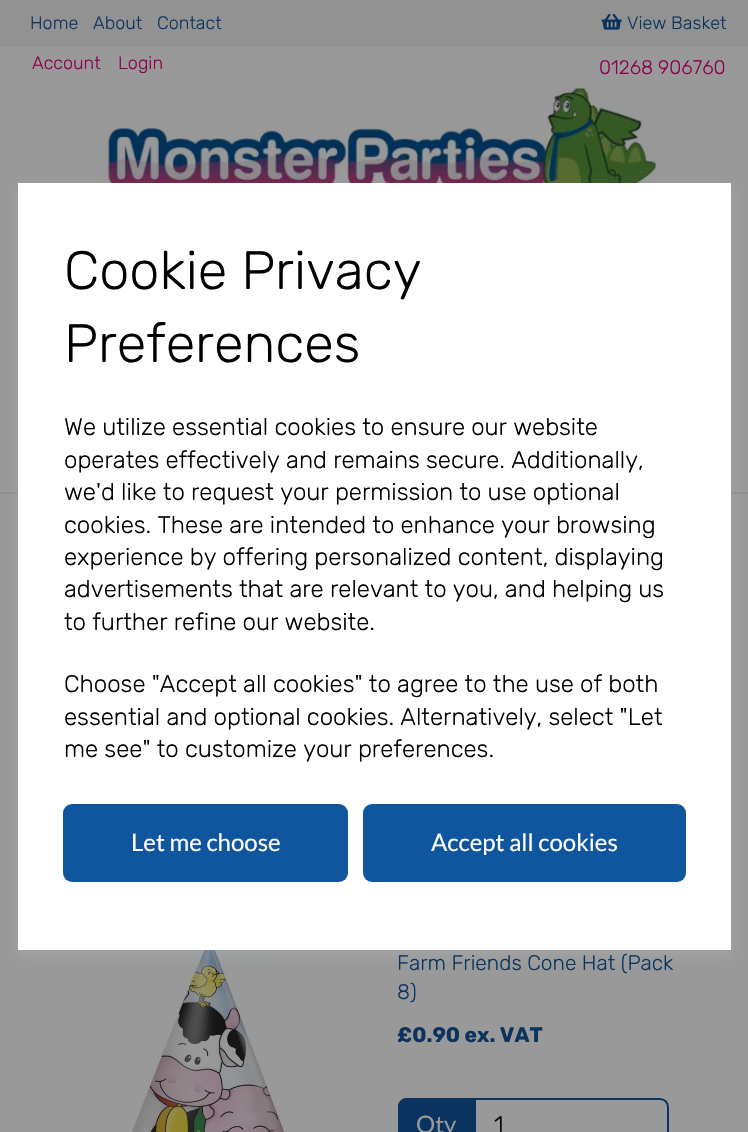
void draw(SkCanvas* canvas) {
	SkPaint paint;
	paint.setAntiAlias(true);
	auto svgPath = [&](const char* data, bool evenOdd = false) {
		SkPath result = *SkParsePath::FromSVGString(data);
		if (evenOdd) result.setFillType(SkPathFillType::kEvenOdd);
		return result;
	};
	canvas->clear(0xff999999);
	paint.setColor(0xff929292);
	canvas->drawRect(SkRect::MakeXYWH(0, 0, 748, 47), paint);
	SkFont f1(fontMgr->matchFamilyStyle("Rubik", SkFontStyle(300, SkFontStyle::kNormal_Width, SkFontStyle::kUpright_Slant)), 18);
	f1.setSubpixel(true);
	paint.setColor(0xff0a345f);
	canvas->drawString("Home", 30, 29, f1, paint);
	canvas->drawString("About", 93, 29, f1, paint);
	canvas->drawString("Contact", 157, 29, f1, paint);
	canvas->drawImageRect(SkImages::DeferredFromEncodedData(SkData::MakeFromFileName("img1.png")), SkRect::MakeXYWH(601, 13, 21, 17), SkSamplingOptions());
	canvas->drawString("View Basket", 627, 29, f1, paint);
	paint.setColor(0xff8a004c);
	canvas->drawString("Account", 32, 69, f1, paint);
	canvas->drawString("Login", 118, 69, f1, paint);
	SkFont f2(fontMgr->matchFamilyStyle("Rubik", SkFontStyle(300, SkFontStyle::kNormal_Width, SkFontStyle::kUpright_Slant)), 19.5);
	f2.setSubpixel(true);
	canvas->drawString("01268 906760", 599, 74, f2, paint);
	canvas->drawImageRect(SkImages::DeferredFromEncodedData(SkData::MakeFromFileName("img2.png")), SkRect::MakeXYWH(102, 88, 554, 95), SkSamplingOptions());
	paint.setColor(0xff8f8f8f);
	canvas->drawRect(SkRect::MakeXYWH(0, 492, 748, 2), paint);
	canvas->drawImageRect(SkImages::DeferredFromEncodedData(SkData::MakeFromFileName("img3.png")), SkRect::MakeXYWH(131, 950, 154, 182), SkSamplingOptions());
	paint.setColor(0x1affffff);
	paint.setMaskFilter(SkMaskFilter::MakeBlur(kNormal_SkBlurStyle, 6));
	canvas->drawRect(SkRect::MakeXYWH(18, 189, 713, 767), paint);
	paint.setMaskFilter(nullptr);
	paint.setColor(0xffffffff);
	canvas->drawRect(SkRect::MakeXYWH(18, 183, 713, 767), paint);
	SkFont f3(fontMgr->matchFamilyStyle("Rubik", SkFontStyle(300, SkFontStyle::kNormal_Width, SkFontStyle::kUpright_Slant)), 54);
	f3.setSubpixel(true);
	paint.setColor(0xff000000);
	canvas->drawString("Cookie Privacy", 64, 289, f3, paint);
	canvas->drawString("Preferences", 64, 362, f3, paint);
	SkFont f4(fontMgr->matchFamilyStyle("Rubik", SkFontStyle(300, SkFontStyle::kNormal_Width, SkFontStyle::kUpright_Slant)), 24);
	f4.setSubpixel(true);
	canvas->drawString("We utilize essential cookies to ensure our website", 64, 435, f4, paint);
	canvas->drawString("operates effectively and remains secure. Additionally,", 64, 468, f4, paint);
	canvas->drawString("we'd like to request your permission to use optional", 64, 500, f4, paint);
	canvas->drawString("cookies. These are intended to enhance your browsing", 64, 533, f4, paint);
	canvas->drawString("experience by offering personalized content, displaying", 64, 565, f4, paint);
	canvas->drawString("advertisements that are relevant to you, and helping us", 64, 597, f4, paint);
	canvas->drawString("to further refine our website.", 64, 630, f4, paint);
	canvas->drawString("Choose \"Accept all cookies\" to agree to the use of both", 64, 692, f4, paint);
	canvas->drawString("essential and optional cookies. Alternatively, select \"Let", 64, 725, f4, paint);
	canvas->drawString("me see\" to customize your preferences.", 64, 757, f4, paint);
	paint.setColor(0xff10569f);
	canvas->drawRoundRect(SkRect::MakeXYWH(63, 804, 285, 78), 9, 9, paint);
	SkFont f5(fontMgr->matchFamilyStyle("Lato", SkFontStyle::Normal()), 24);
	f5.setSubpixel(true);
	paint.setColor(0xffffffff);
	canvas->drawString("Let me choose", 131, 851, f5, paint);
	paint.setColor(0xff10569f);
	canvas->drawRoundRect(SkRect::MakeXYWH(363, 804, 323, 78), 9, 9, paint);
	paint.setColor(0xffffffff);
	canvas->drawString("Accept all cookies", 431, 851, f5, paint);
	SkFont f6(fontMgr->matchFamilyStyle("Rubik", SkFontStyle(300, SkFontStyle::kNormal_Width, SkFontStyle::kUpright_Slant)), 21);
	f6.setSubpixel(true);
	paint.setColor(0xff0a345f);
	canvas->drawString("Farm Friends Cone Hat (Pack", 397, 970, f6, paint);
	canvas->drawString("8)", 397, 999, f6, paint);
	SkFont f7(fontMgr->matchFamilyStyle("Rubik", SkFontStyle::Bold()), 21);
	f7.setSubpixel(true);
	canvas->drawString("£0.90 ex. VAT", 397, 1042, f7, paint);
	canvas->drawPath(svgPath("M407 1098H474V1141H407C402 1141 398 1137 398 1132V1107C398 1102 402 1098 407 1098Z"), paint);
	canvas->drawPath(svgPath("M406 1098H474V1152H406C402 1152 398 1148 398 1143V1107C398 1102 402 1098 406 1098ZM406 1100H474V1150H406C402 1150 399 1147 399 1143V1107C399 1103 402 1100 406 1100Z", true), paint);
	paint.setColor(0xff999999);
	canvas->drawString("Qty", 416, 1133, f5, paint);
	paint.setStroke(true);
	paint.setStrokeWidth(2);
	paint.setColor(0xff0a345f);
	canvas->drawPath(svgPath("M475 1099H660C664.5 1099 668 1102.5 668 1107V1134C668 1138.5 664.5 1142 660 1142H475Z"), paint);
	paint.setStroke(false);
	paint.setColor(0xff000000);
	canvas->drawString("1", 494, 1133, f4, paint);
}
